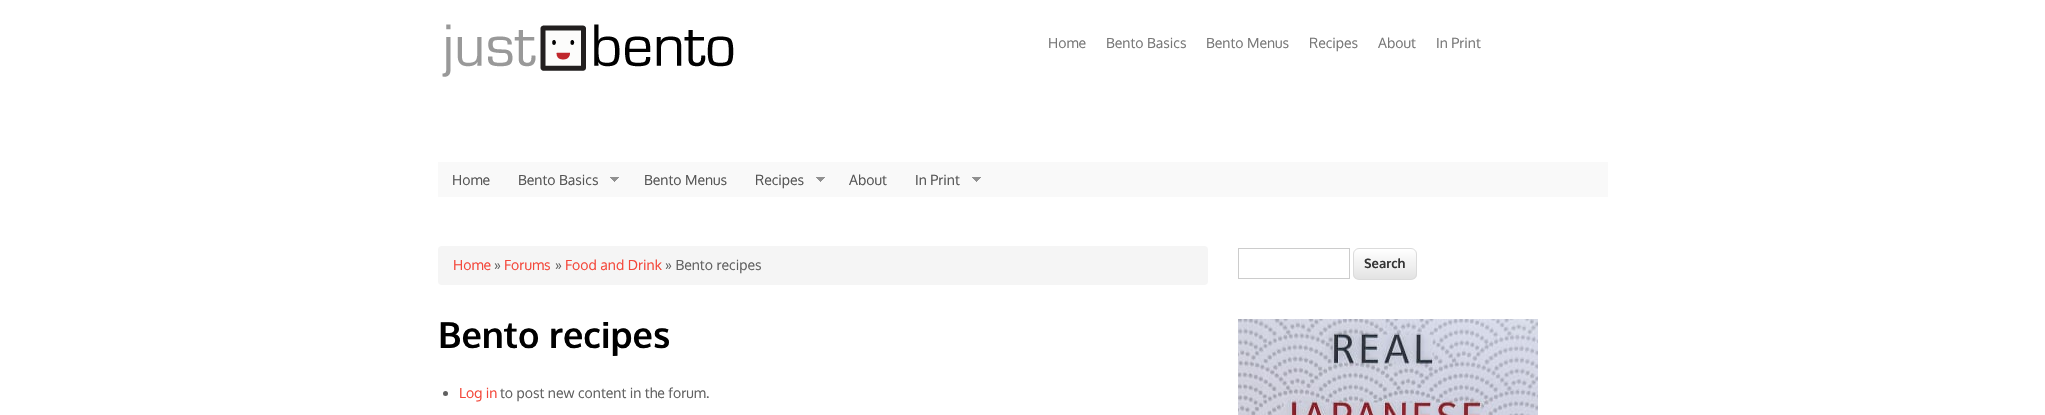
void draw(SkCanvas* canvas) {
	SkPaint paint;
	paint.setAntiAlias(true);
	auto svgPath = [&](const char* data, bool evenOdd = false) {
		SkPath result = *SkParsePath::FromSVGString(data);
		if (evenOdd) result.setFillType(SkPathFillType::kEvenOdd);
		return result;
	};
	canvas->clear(0xffffffff);
	canvas->drawImageRect(SkImages::DeferredFromEncodedData(SkData::MakeFromFileName("img1.png")), SkRect::MakeXYWH(442, 24, 292, 53), SkSamplingOptions());
	SkFont f1(fontMgr->matchFamilyStyle("Oxygen", SkFontStyle::Normal()), 14);
	f1.setSubpixel(true);
	paint.setColor(0xff777777);
	canvas->drawString("Home", 1048, 48, f1, paint);
	canvas->drawString("Bento Basics", 1106, 48, f1, paint);
	canvas->drawString("Bento Menus", 1206, 48, f1, paint);
	canvas->drawString("Recipes", 1309, 48, f1, paint);
	canvas->drawString("About", 1378, 48, f1, paint);
	canvas->drawString("In Print", 1436, 48, f1, paint);
	paint.setColor(0xfff9f9f9);
	canvas->drawRect(SkRect::MakeXYWH(438, 162, 1170, 35), paint);
	paint.setColor(0xff555555);
	canvas->drawString("Home", 452, 185, f1, paint);
	canvas->drawString("Bento Basics", 518, 185, f1, paint);
	canvas->drawImageRect(SkImages::DeferredFromEncodedData(SkData::MakeFromFileName("img2.png")), SkRect::MakeXYWH(610, 177, 9, 5), SkSamplingOptions());
	canvas->drawString("Bento Menus", 644, 185, f1, paint);
	canvas->drawString("Recipes", 755, 185, f1, paint);
	canvas->drawImageRect(SkImages::DeferredFromEncodedData(SkData::MakeFromFileName("img2.png")), SkRect::MakeXYWH(816, 177, 9, 5), SkSamplingOptions());
	canvas->drawString("About", 849, 185, f1, paint);
	canvas->drawString("In Print", 915, 185, f1, paint);
	canvas->drawImageRect(SkImages::DeferredFromEncodedData(SkData::MakeFromFileName("img2.png")), SkRect::MakeXYWH(972, 177, 9, 5), SkSamplingOptions());
	paint.setColor(0xfff5f5f5);
	canvas->drawRoundRect(SkRect::MakeXYWH(438, 246, 770, 39), 4, 4, paint);
	paint.setColor(0xfff4473a);
	canvas->drawString("Home", 453, 270, f1, paint);
	paint.setColor(0xff606060);
	canvas->drawString("»", 494, 270, f1, paint);
	paint.setColor(0xfff4473a);
	canvas->drawString("Forums", 504, 270, f1, paint);
	paint.setColor(0xff606060);
	canvas->drawString("»", 555, 270, f1, paint);
	paint.setColor(0xfff4473a);
	canvas->drawString("Food and Drink", 565, 270, f1, paint);
	paint.setColor(0xff606060);
	canvas->drawString("» Bento recipes", 665, 270, f1, paint);
	SkFont f2(fontMgr->matchFamilyStyle("Oxygen", SkFontStyle::Bold()), 36);
	f2.setSubpixel(true);
	paint.setColor(0xff000000);
	canvas->drawString("Bento recipes", 438, 348, f2, paint);
	paint.setColor(0xff606060);
	canvas->drawCircle(445.5, 393.5, 2.5, paint);
	paint.setColor(0xfff4473a);
	canvas->drawString("Log in", 459, 398, f1, paint);
	paint.setColor(0xff606060);
	canvas->drawString("to post new content in the forum.", 500, 398, f1, paint);
	paint.setStroke(true);
	paint.setStrokeWidth(1);
	paint.setColor(0xffcccccc);
	canvas->drawRect(SkRect::MakeXYWH(1238.5, 248.5, 111, 30), paint);
	canvas->save();
	canvas->clipPath(svgPath("M1359 248H1411C1414.5 248 1417 250.5 1417 254V274C1417 277.5 1414.5 280 1411 280H1359C1355.5 280 1353 277.5 1353 274V254C1353 250.5 1355.5 248 1359 248Z"), true);
	paint.setStroke(false);
	{
		const SkColor colors[] = {0xffffffff, 0xffe3e3e3};
		const float stops[] = {0, 1};
		const SkPoint ends[] = {{1385, 249}, {1385, 279}};
		paint.setShader(SkGradientShader::MakeLinear(ends, colors, stops, 2, SkTileMode::kClamp));
		paint.setAlpha(255);
	}
	canvas->drawRect(SkRect::MakeXYWH(1353, 249, 64, 30), paint);
	canvas->restore();
	paint.setStroke(true);
	paint.setShader(nullptr);
	paint.setColor(0xffdbdbdb);
	canvas->drawRoundRect(SkRect::MakeXYWH(1353.5, 248.5, 63, 31), 5.5, 5.5, paint);
	SkFont f3(fontMgr->matchFamilyStyle("Oxygen", SkFontStyle::Bold()), 13);
	f3.setSubpixel(true);
	paint.setStroke(false);
	paint.setColor(0xff333333);
	canvas->drawString("Search", 1364, 268, f3, paint);
	canvas->drawImageRect(SkImages::DeferredFromEncodedData(SkData::MakeFromFileName("img3.png")), SkRect::MakeXYWH(1238, 319, 300, 96), SkSamplingOptions());
}
